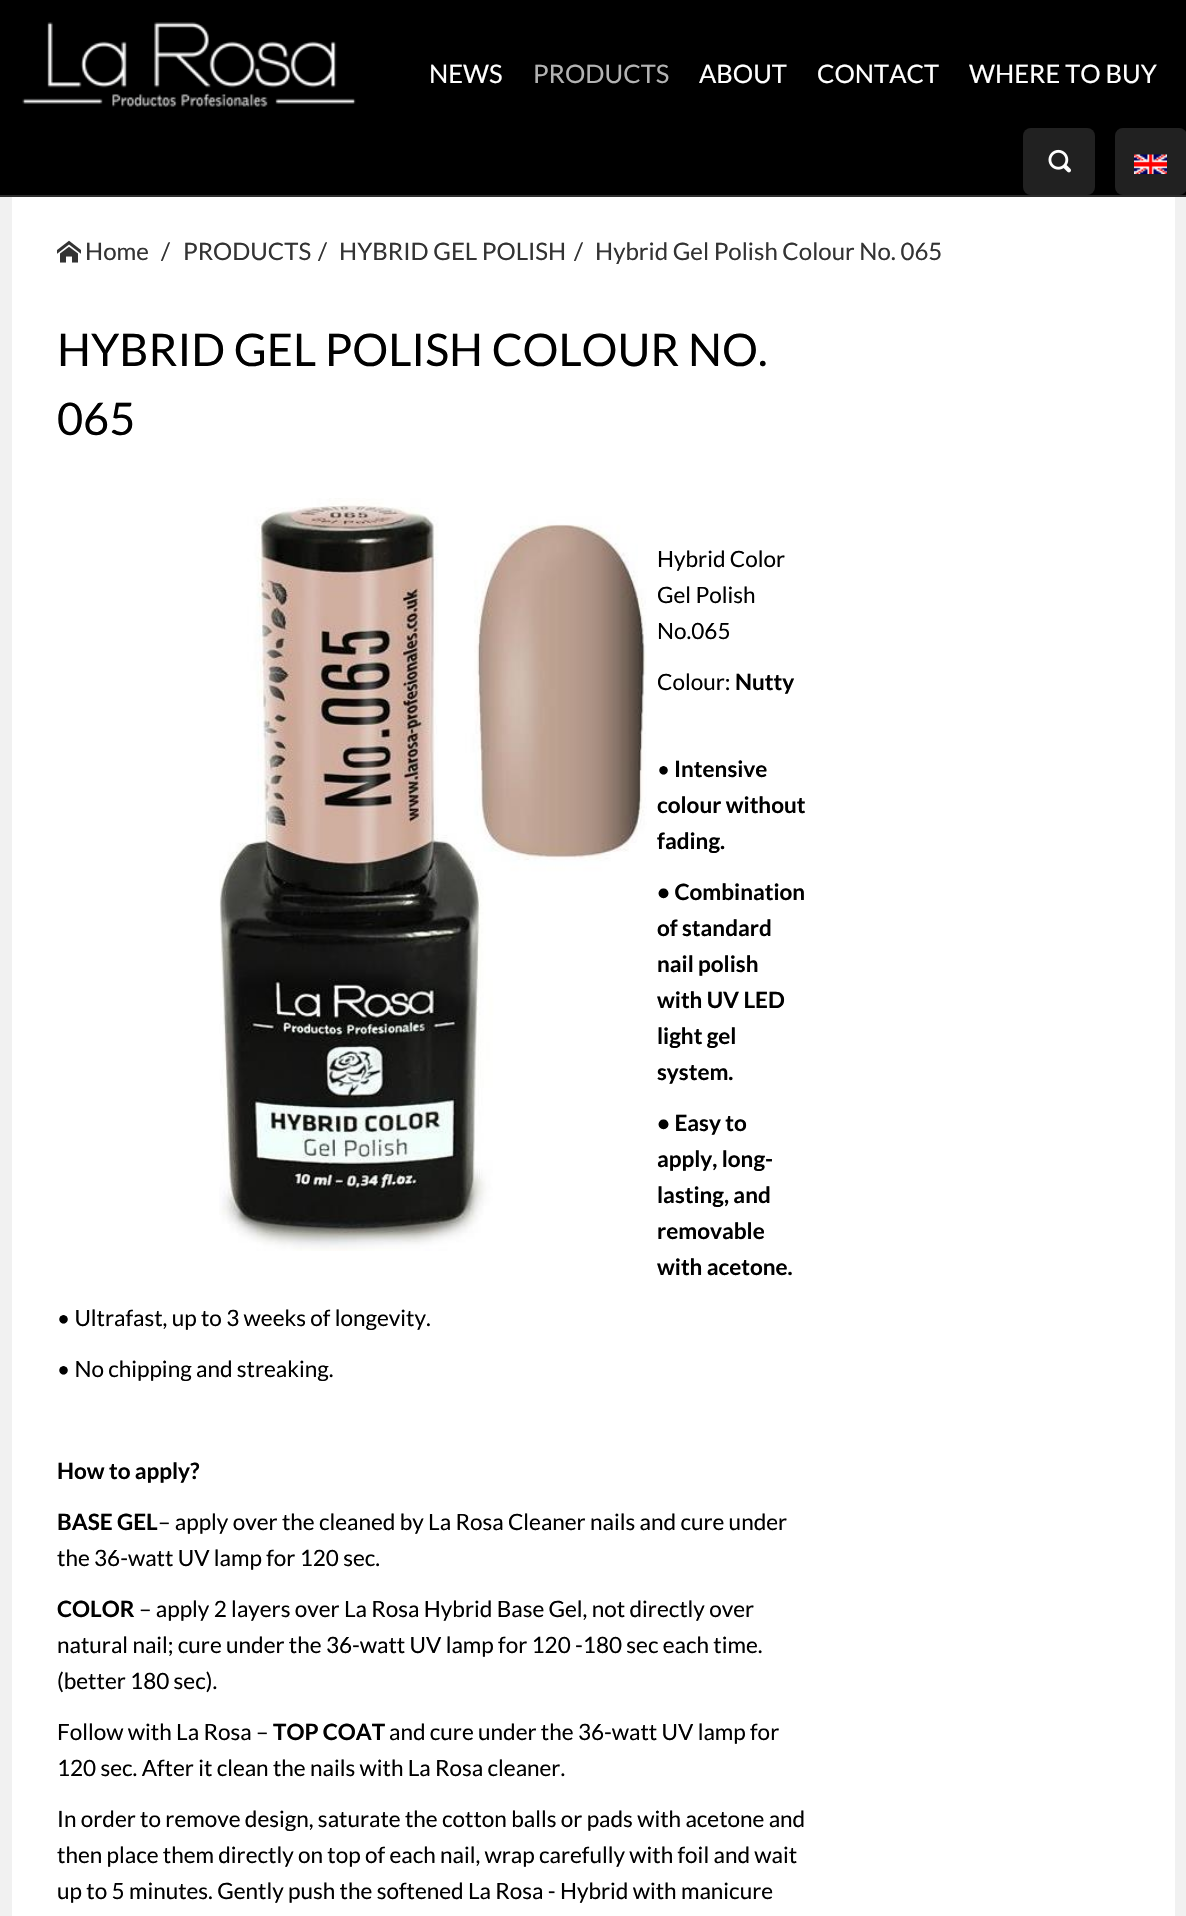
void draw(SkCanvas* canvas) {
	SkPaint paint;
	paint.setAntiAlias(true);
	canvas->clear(0xfff1f1f1);
	paint.setColor(0xff000000);
	canvas->drawRect(SkRect::MakeXYWH(0, 0, 1186, 195), paint);
	paint.setColor(0xff2d2d2d);
	canvas->drawRect(SkRect::MakeXYWH(0, 195, 1186, 2), paint);
	canvas->drawImageRect(SkImages::DeferredFromEncodedData(SkData::MakeFromFileName("img1.png")), SkRect::MakeXYWH(22, 22, 334, 85), SkSamplingOptions());
	SkFont f1(fontMgr->matchFamilyStyle("Lato", SkFontStyle::Normal()), 25.5);
	f1.setSubpixel(true);
	paint.setColor(0xffffffff);
	canvas->drawString("NEWS", 429, 83, f1, paint);
	paint.setColor(0xffb3b3b3);
	canvas->drawString("PRODUCTS", 533, 83, f1, paint);
	paint.setColor(0xffffffff);
	canvas->drawString("ABOUT", 699, 83, f1, paint);
	canvas->drawString("CONTACT", 817, 83, f1, paint);
	canvas->drawString("WHERE TO BUY", 969, 83, f1, paint);
	paint.setColor(0xff212121);
	canvas->drawRoundRect(SkRect::MakeXYWH(1023, 128, 72, 67), 8, 8, paint);
	canvas->drawImageRect(SkImages::DeferredFromEncodedData(SkData::MakeFromFileName("img2.png")), SkRect::MakeXYWH(1048, 149, 23, 24), SkSamplingOptions());
	canvas->drawRoundRect(SkRect::MakeXYWH(1115, 128, 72, 67), 8, 8, paint);
	canvas->drawImageRect(SkImages::DeferredFromEncodedData(SkData::MakeFromFileName("img3.png")), SkRect::MakeXYWH(1134, 154, 33, 20), SkSamplingOptions());
	paint.setColor(0xffffffff);
	canvas->drawRect(SkRect::MakeXYWH(12, 197, 1163, 1719), paint);
	canvas->drawImageRect(SkImages::DeferredFromEncodedData(SkData::MakeFromFileName("img4.png")), SkRect::MakeXYWH(57, 240, 24, 23), SkSamplingOptions());
	SkFont f2(fontMgr->matchFamilyStyle("Lato", SkFontStyle::Normal()), 24);
	f2.setSubpixel(true);
	paint.setColor(0xff333333);
	canvas->drawString("Home", 85, 260, f2, paint);
	canvas->drawString("/", 161, 260, f2, paint);
	canvas->drawString("PRODUCTS", 183, 260, f2, paint);
	canvas->drawString("/", 318, 260, f2, paint);
	canvas->drawString("HYBRID GEL POLISH", 339, 260, f2, paint);
	canvas->drawString("/", 574, 260, f2, paint);
	canvas->drawString("Hybrid Gel Polish Colour No. 065", 595, 260, f2, paint);
	SkFont f3(fontMgr->matchFamilyStyle("Lato", SkFontStyle::Normal()), 45);
	f3.setSubpixel(true);
	paint.setColor(0xff000000);
	canvas->drawString("HYBRID GEL POLISH COLOUR NO.", 57, 366, f3, paint);
	canvas->drawString("065", 57, 435, f3, paint);
	canvas->drawImageRect(SkImages::DeferredFromEncodedData(SkData::MakeFromFileName("img5.png")), SkRect::MakeXYWH(219, 498, 428, 753), SkSamplingOptions());
	SkFont f4(fontMgr->matchFamilyStyle("Lato", SkFontStyle::Normal()), 22.5);
	f4.setSubpixel(true);
	canvas->drawString("Hybrid Color", 657, 567, f4, paint);
	canvas->drawString("Gel Polish", 657, 603, f4, paint);
	canvas->drawString("No.065", 657, 639, f4, paint);
	canvas->drawString("Colour:", 657, 690, f4, paint);
	SkFont f5(fontMgr->matchFamilyStyle("Lato", SkFontStyle::Bold()), 22.5);
	f5.setSubpixel(true);
	canvas->drawString("Nutty", 735, 690, f5, paint);
	canvas->drawString("•", 657, 777, f4, paint);
	canvas->drawString("Intensive", 674, 777, f5, paint);
	canvas->drawString("colour without", 657, 813, f5, paint);
	canvas->drawString("fading.", 657, 849, f5, paint);
	canvas->drawString("• Combination", 657, 900, f5, paint);
	canvas->drawString("of standard", 657, 936, f5, paint);
	canvas->drawString("nail polish", 657, 972, f5, paint);
	canvas->drawString("with UV LED", 657, 1008, f5, paint);
	canvas->drawString("light gel", 657, 1044, f5, paint);
	canvas->drawString("system.", 657, 1080, f5, paint);
	canvas->drawString("• Easy to", 657, 1131, f5, paint);
	canvas->drawString("apply, long-", 657, 1167, f5, paint);
	canvas->drawString("lasting, and", 657, 1203, f5, paint);
	canvas->drawString("removable", 657, 1239, f5, paint);
	canvas->drawString("with acetone.", 657, 1275, f5, paint);
	canvas->drawString("• Ultrafast, up to 3 weeks of longevity.", 57, 1326, f4, paint);
	canvas->drawString("• No chipping and streaking.", 57, 1377, f4, paint);
	canvas->drawString("How to apply?", 57, 1479, f5, paint);
	canvas->drawString("BASE GEL", 57, 1530, f5, paint);
	canvas->drawString("– apply over the cleaned by La Rosa Cleaner nails and cure under", 158, 1530, f4, paint);
	canvas->drawString("the 36-watt UV lamp for 120 sec.", 57, 1566, f4, paint);
	canvas->drawString("COLOR", 57, 1617, f5, paint);
	canvas->drawString("– apply 2 layers over La Rosa Hybrid Base Gel, not directly over", 139, 1617, f4, paint);
	canvas->drawString("natural nail; cure under the 36-watt UV lamp for 120 -180 sec each time.", 57, 1653, f4, paint);
	canvas->drawString("(better 180 sec).", 57, 1689, f4, paint);
	canvas->drawString("Follow with La Rosa –", 57, 1740, f4, paint);
	canvas->drawString("TOP COAT", 273, 1740, f5, paint);
	canvas->drawString("and cure under the 36-watt UV lamp for", 389, 1740, f4, paint);
	canvas->drawString("120 sec. After it clean the nails with La Rosa cleaner.", 57, 1776, f4, paint);
	canvas->drawString("In order to remove design, saturate the cotton balls or pads with acetone and", 57, 1827, f4, paint);
	canvas->drawString("then place them directly on top of each nail, wrap carefully with foil and wait", 57, 1863, f4, paint);
	canvas->drawString("up to 5 minutes. Gently push the softened La Rosa - Hybrid with manicure", 57, 1899, f4, paint);
}
